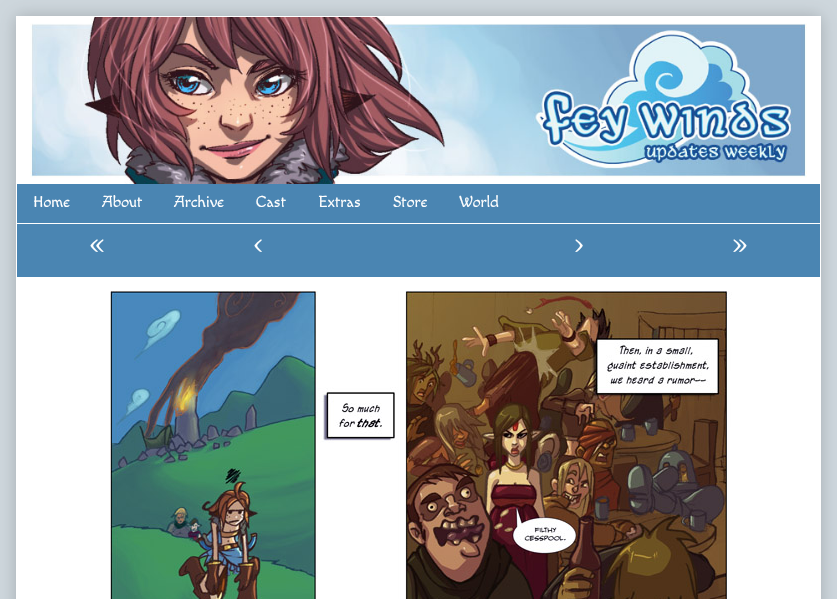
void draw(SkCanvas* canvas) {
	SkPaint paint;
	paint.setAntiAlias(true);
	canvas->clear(0xffced7dd);
	paint.setColor(0x33000000);
	paint.setMaskFilter(SkMaskFilter::MakeBlur(kNormal_SkBlurStyle, 8));
	canvas->drawRect(SkRect::MakeXYWH(16, 16, 805, 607), paint);
	paint.setMaskFilter(nullptr);
	paint.setColor(0xffffffff);
	canvas->drawRect(SkRect::MakeXYWH(16, 16, 805, 583), paint);
	canvas->drawImageRect(SkImages::DeferredFromEncodedData(SkData::MakeFromFileName("img1.png")), SkRect::MakeXYWH(30, 17, 777, 167), SkSamplingOptions());
	paint.setColor(0xff4a85b2);
	canvas->drawRect(SkRect::MakeXYWH(17, 184, 803, 39), paint);
	SkFont f1(fontMgr->matchFamilyStyle("Macondo", SkFontStyle::Normal()), 16);
	f1.setSubpixel(true);
	paint.setColor(0xffffffff);
	canvas->drawString("Home", 33, 207, f1, paint);
	canvas->drawString("About", 102, 207, f1, paint);
	canvas->drawString("Archive", 174, 207, f1, paint);
	canvas->drawString("Cast", 256, 207, f1, paint);
	canvas->drawString("Extras", 318, 207, f1, paint);
	canvas->drawString("Store", 393, 207, f1, paint);
	canvas->drawString("World", 459, 207, f1, paint);
	paint.setColor(0xff4a85b2);
	canvas->drawRect(SkRect::MakeXYWH(17, 224, 803, 53), paint);
	SkFont f2(fontMgr->matchFamilyStyle("Macondo", SkFontStyle::Normal()), 32);
	f2.setSubpixel(true);
	paint.setColor(0xffffffff);
	canvas->drawString("«", 89, 255, f2, paint);
	canvas->drawString("‹", 253, 255, f2, paint);
	canvas->drawString("›", 574, 255, f2, paint);
	canvas->drawString("»", 732, 255, f2, paint);
	canvas->drawImageRect(SkImages::DeferredFromEncodedData(SkData::MakeFromFileName("img2.png")), SkRect::MakeXYWH(110, 291, 622, 308), SkSamplingOptions());
}
